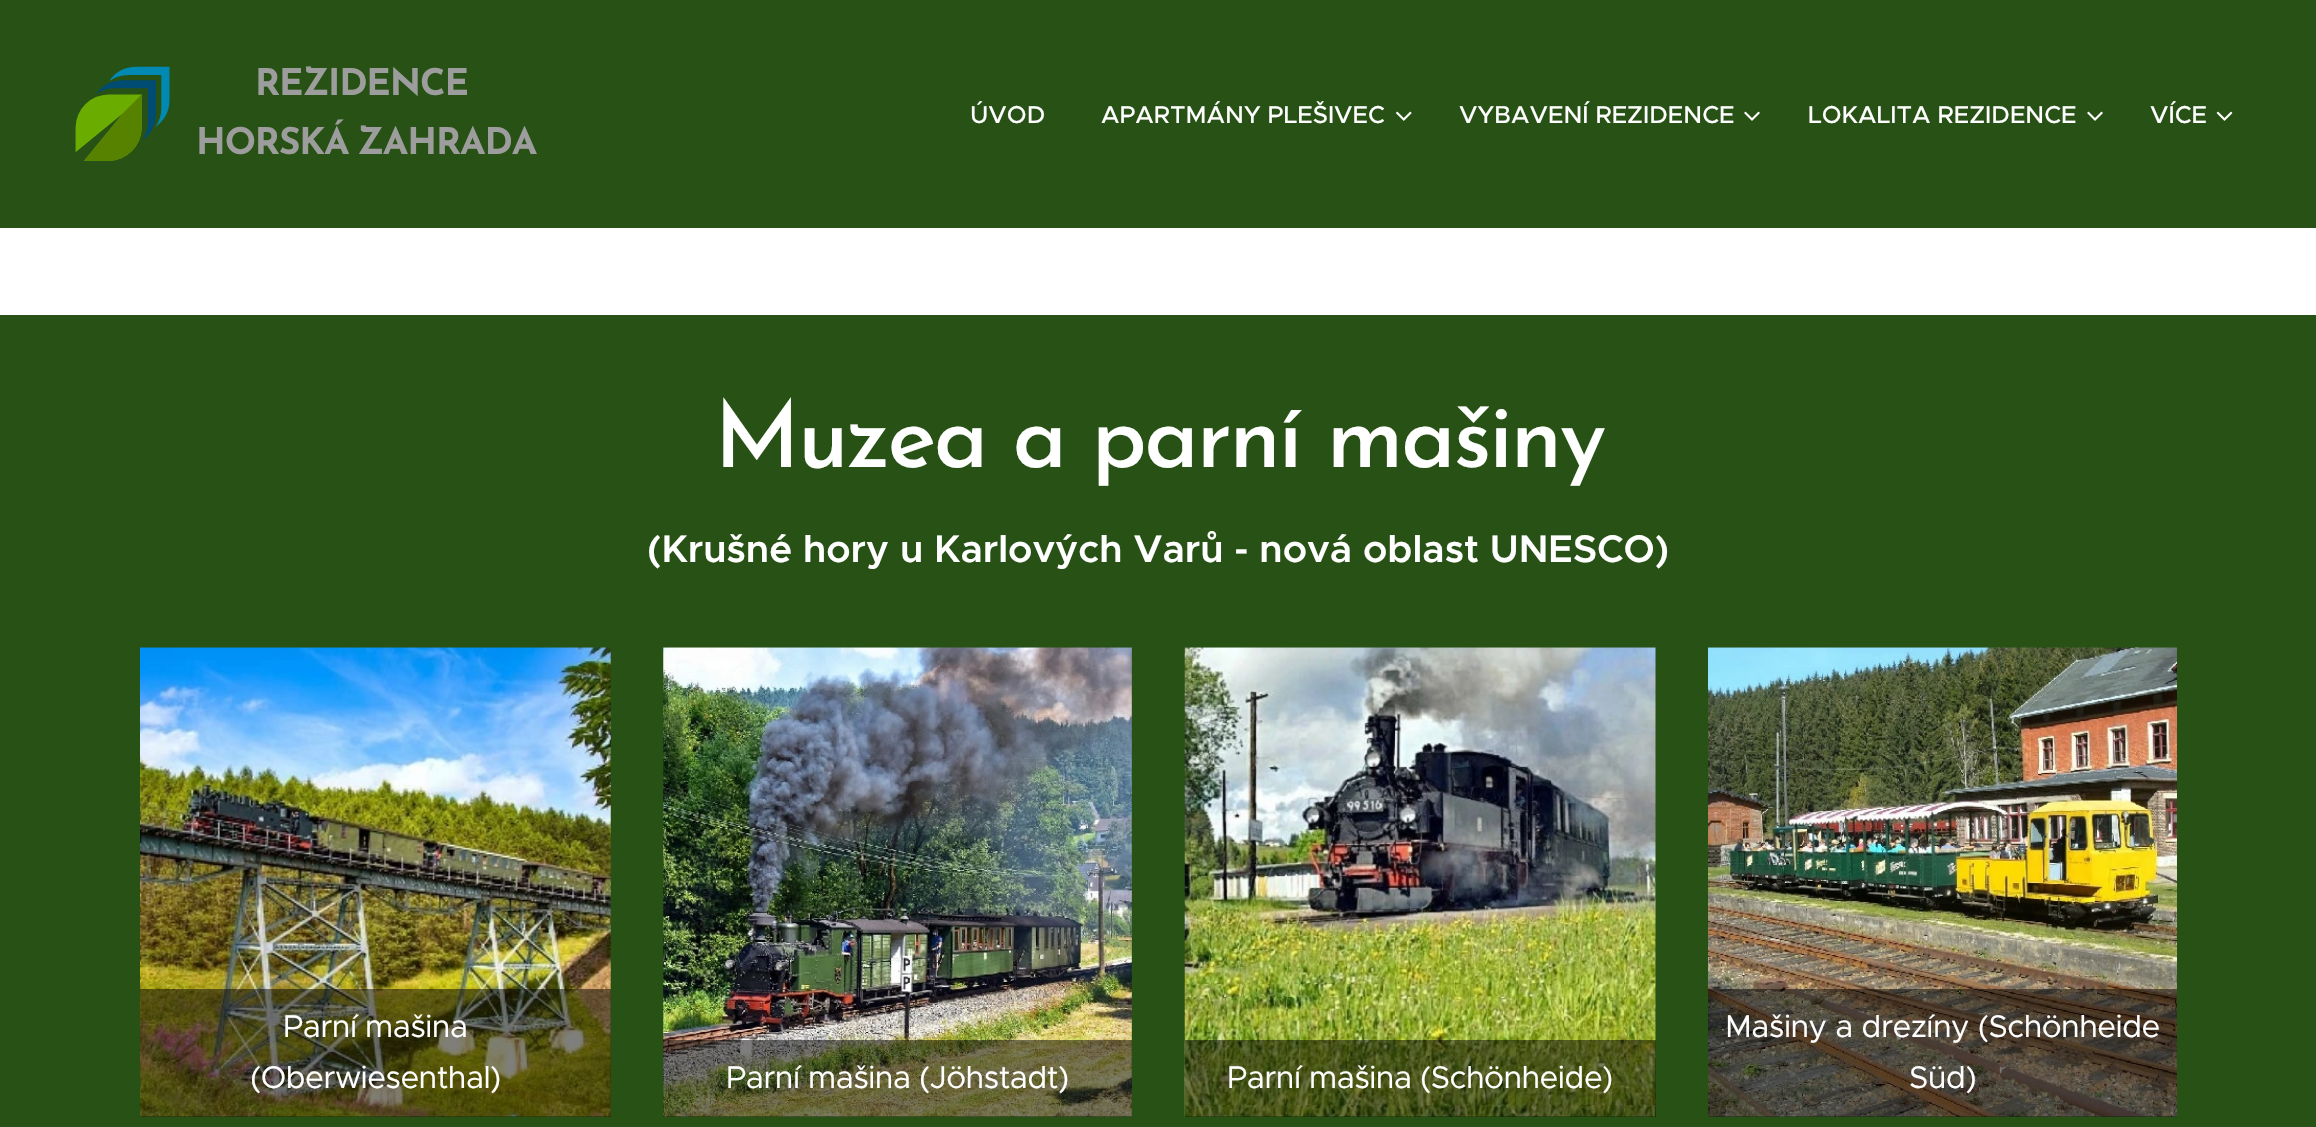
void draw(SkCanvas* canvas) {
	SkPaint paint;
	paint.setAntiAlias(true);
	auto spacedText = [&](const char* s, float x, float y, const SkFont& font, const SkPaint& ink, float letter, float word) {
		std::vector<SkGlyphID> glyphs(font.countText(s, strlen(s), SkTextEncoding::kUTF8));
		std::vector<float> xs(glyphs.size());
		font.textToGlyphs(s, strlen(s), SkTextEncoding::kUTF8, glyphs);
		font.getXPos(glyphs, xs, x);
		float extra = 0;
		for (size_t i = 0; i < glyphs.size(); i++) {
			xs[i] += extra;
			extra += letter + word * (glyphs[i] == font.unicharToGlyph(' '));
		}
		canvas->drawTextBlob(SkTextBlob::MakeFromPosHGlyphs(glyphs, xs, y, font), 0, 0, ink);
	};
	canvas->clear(0xffffffff);
	paint.setColor(0xff275115);
	canvas->drawRect(SkRect::MakeXYWH(0, 0, 2316, 228), paint);
	canvas->drawImageRect(SkImages::DeferredFromEncodedData(SkData::MakeFromFileName("img1.png")), SkRect::MakeXYWH(75, 66, 95, 95), SkSamplingOptions());
	SkFont f1(fontMgr->matchFamilyStyle("Josefin Sans", SkFontStyle::Bold()), 36.75);
	f1.setSubpixel(true);
	paint.setColor(0xff9d9d9d);
	spacedText("REZIDENCE", 255, 95, f1, paint, -1.1, 0);
	spacedText("HORSKÁ ZAHRADA", 196, 154, f1, paint, -1.1, -2);
	SkFont f2(fontMgr->matchFamilyStyle("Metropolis", SkFontStyle(500, SkFontStyle::kNormal_Width, SkFontStyle::kUpright_Slant)), 24.5);
	f2.setSubpixel(true);
	paint.setColor(0xffffffff);
	canvas->drawString("ÚVOD", 970, 123, f2, paint);
	canvas->drawString("APARTMÁNY PLEŠIVEC", 1101, 123, f2, paint);
	canvas->drawImageRect(SkImages::DeferredFromEncodedData(SkData::MakeFromFileName("img2.png")), SkRect::MakeXYWH(1396, 111, 16, 10), SkSamplingOptions());
	canvas->drawString("VYBAVENÍ REZIDENCE", 1459, 123, f2, paint);
	canvas->drawImageRect(SkImages::DeferredFromEncodedData(SkData::MakeFromFileName("img3.png")), SkRect::MakeXYWH(1744, 111, 16, 10), SkSamplingOptions());
	canvas->drawString("LOKALITA REZIDENCE", 1808, 123, f2, paint);
	canvas->drawImageRect(SkImages::DeferredFromEncodedData(SkData::MakeFromFileName("img3.png")), SkRect::MakeXYWH(2087, 111, 16, 10), SkSamplingOptions());
	canvas->drawString("VÍCE", 2150, 123, f2, paint);
	canvas->drawImageRect(SkImages::DeferredFromEncodedData(SkData::MakeFromFileName("img4.png")), SkRect::MakeXYWH(2216, 111, 17, 10), SkSamplingOptions());
	paint.setColor(0xff275115);
	canvas->drawRect(SkRect::MakeXYWH(0, 315, 2316, 812), paint);
	SkFont f3(fontMgr->matchFamilyStyle("Josefin Sans", SkFontStyle(500, SkFontStyle::kNormal_Width, SkFontStyle::kUpright_Slant)), 92.75);
	f3.setSubpixel(true);
	paint.setColor(0xffffffff);
	spacedText("Muzea a parní mašiny", 714, 467, f3, paint, -2.75, 0);
	SkFont f4(fontMgr->matchFamilyStyle("Metropolis", SkFontStyle(600, SkFontStyle::kNormal_Width, SkFontStyle::kUpright_Slant)), 38.5);
	f4.setSubpixel(true);
	canvas->drawString("(Krušné hory u Karlových Varů - nová oblast UNESCO)", 647, 562, f4, paint);
	canvas->drawImageRect(SkImages::DeferredFromEncodedData(SkData::MakeFromFileName("img5.png")), SkRect::MakeXYWH(140, 647, 471, 470), SkSamplingOptions());
	paint.setColor(0x80000000);
	canvas->drawRect(SkRect::MakeXYWH(140, 989, 471, 128), paint);
	SkFont f5(fontMgr->matchFamilyStyle("Metropolis", SkFontStyle::Normal()), 31.5);
	f5.setSubpixel(true);
	paint.setColor(0xffffffff);
	spacedText("Parní mašina", 283, 1037, f5, paint, -0.55, 0);
	spacedText("(Oberwiesenthal)", 250, 1088, f5, paint, -0.55, 0);
	canvas->drawImageRect(SkImages::DeferredFromEncodedData(SkData::MakeFromFileName("img6.png")), SkRect::MakeXYWH(663, 647, 469, 470), SkSamplingOptions());
	paint.setColor(0x80000000);
	canvas->drawRect(SkRect::MakeXYWH(663, 1040, 469, 77), paint);
	paint.setColor(0xffffffff);
	spacedText("Parní mašina (Jöhstadt)", 726, 1088, f5, paint, -0.55, 0);
	canvas->drawImageRect(SkImages::DeferredFromEncodedData(SkData::MakeFromFileName("img7.png")), SkRect::MakeXYWH(1184, 647, 472, 470), SkSamplingOptions());
	paint.setColor(0x80000000);
	canvas->drawRect(SkRect::MakeXYWH(1185, 1040, 471, 77), paint);
	paint.setColor(0xffffffff);
	spacedText("Parní mašina (Schönheide)", 1227, 1088, f5, paint, -0.55, 0);
	canvas->drawImageRect(SkImages::DeferredFromEncodedData(SkData::MakeFromFileName("img8.png")), SkRect::MakeXYWH(1708, 647, 469, 470), SkSamplingOptions());
	paint.setColor(0x80000000);
	canvas->drawRect(SkRect::MakeXYWH(1708, 989, 469, 128), paint);
	paint.setColor(0xffffffff);
	spacedText("Mašiny a drezíny (Schönheide", 1725, 1037, f5, paint, -0.55, 0);
	spacedText("Süd)", 1909, 1088, f5, paint, -0.55, 0);
}
